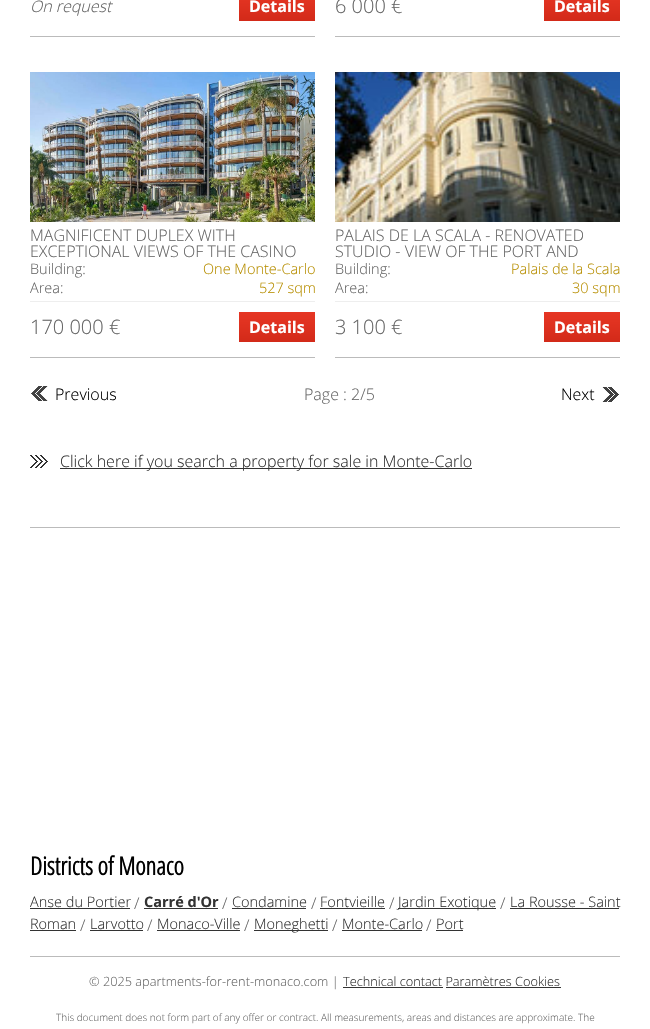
void draw(SkCanvas* canvas) {
	SkPaint paint;
	paint.setAntiAlias(true);
	canvas->clear(0xffffffff);
	paint.setColor(0xffbbbbbb);
	canvas->drawRect(SkRect::MakeXYWH(30, 36, 285, 1), paint);
	SkFont f1(fontMgr->matchFamilyStyle("Open Sans", SkFontStyle(300, SkFontStyle::kNormal_Width, SkFontStyle::kItalic_Slant)), 16);
	f1.setSubpixel(true);
	paint.setColor(0xff666666);
	canvas->drawString("On request", 30, 12, f1, paint);
	canvas->drawImageRect(SkImages::DeferredFromEncodedData(SkData::MakeFromFileName("img1.png")), SkRect::MakeXYWH(239, 0, 76, 21), SkSamplingOptions());
	SkFont f2(fontMgr->matchFamilyStyle("Open Sans", SkFontStyle::Bold()), 16);
	f2.setSubpixel(true);
	paint.setColor(0xffffffff);
	canvas->drawString("Details", 249, 12, f2, paint);
	paint.setColor(0xffbbbbbb);
	canvas->drawRect(SkRect::MakeXYWH(335, 36, 285, 1), paint);
	SkFont f3(fontMgr->matchFamilyStyle("Open Sans", SkFontStyle(300, SkFontStyle::kNormal_Width, SkFontStyle::kUpright_Slant)), 20);
	f3.setSubpixel(true);
	paint.setColor(0xff666666);
	canvas->drawString("6 000 €", 335, 13, f3, paint);
	canvas->drawImageRect(SkImages::DeferredFromEncodedData(SkData::MakeFromFileName("img1.png")), SkRect::MakeXYWH(544, 0, 76, 21), SkSamplingOptions());
	paint.setColor(0xffffffff);
	canvas->drawString("Details", 554, 12, f2, paint);
	paint.setColor(0xffbbbbbb);
	canvas->drawRect(SkRect::MakeXYWH(30, 357, 285, 1), paint);
	canvas->drawImageRect(SkImages::DeferredFromEncodedData(SkData::MakeFromFileName("img2.png")), SkRect::MakeXYWH(30, 72, 285, 150), SkSamplingOptions());
	SkFont f4(fontMgr->matchFamilyStyle("Open Sans", SkFontStyle(300, SkFontStyle::kNormal_Width, SkFontStyle::kUpright_Slant)), 16);
	f4.setSubpixel(true);
	paint.setColor(0xff666666);
	canvas->drawString("MAGNIFICENT DUPLEX WITH", 30, 241, f4, paint);
	canvas->drawString("EXCEPTIONAL VIEWS OF THE CASINO", 30, 257, f4, paint);
	SkFont f5(fontMgr->matchFamilyStyle("Open Sans", SkFontStyle(300, SkFontStyle::kNormal_Width, SkFontStyle::kUpright_Slant)), 14.5);
	f5.setSubpixel(true);
	canvas->drawString("Building:", 30, 274, f5, paint);
	paint.setColor(0xffb78e00);
	canvas->drawString("One Monte-Carlo", 203, 274, f5, paint);
	paint.setColor(0xff666666);
	canvas->drawString("Area:", 30, 293, f5, paint);
	paint.setColor(0xffb78e00);
	canvas->drawString("527 sqm", 259, 293, f5, paint);
	paint.setColor(0xffeeeeee);
	canvas->drawRect(SkRect::MakeXYWH(30, 301, 285, 1), paint);
	paint.setColor(0xff666666);
	canvas->drawString("170 000 €", 30, 334, f3, paint);
	canvas->drawImageRect(SkImages::DeferredFromEncodedData(SkData::MakeFromFileName("img3.png")), SkRect::MakeXYWH(239, 312, 76, 30), SkSamplingOptions());
	paint.setColor(0xffffffff);
	canvas->drawString("Details", 249, 333, f2, paint);
	paint.setColor(0xffbbbbbb);
	canvas->drawRect(SkRect::MakeXYWH(335, 357, 285, 1), paint);
	canvas->drawImageRect(SkImages::DeferredFromEncodedData(SkData::MakeFromFileName("img4.png")), SkRect::MakeXYWH(335, 72, 285, 150), SkSamplingOptions());
	paint.setColor(0xff666666);
	canvas->drawString("PALAIS DE LA SCALA - RENOVATED", 335, 241, f4, paint);
	canvas->drawString("STUDIO - VIEW OF THE PORT AND", 335, 257, f4, paint);
	canvas->drawString("Building:", 335, 274, f5, paint);
	paint.setColor(0xffb78e00);
	canvas->drawString("Palais de la Scala", 511, 274, f5, paint);
	paint.setColor(0xff666666);
	canvas->drawString("Area:", 335, 293, f5, paint);
	paint.setColor(0xffb78e00);
	canvas->drawString("30 sqm", 572, 293, f5, paint);
	paint.setColor(0xffeeeeee);
	canvas->drawRect(SkRect::MakeXYWH(335, 301, 285, 1), paint);
	paint.setColor(0xff666666);
	canvas->drawString("3 100 €", 335, 334, f3, paint);
	canvas->drawImageRect(SkImages::DeferredFromEncodedData(SkData::MakeFromFileName("img3.png")), SkRect::MakeXYWH(544, 312, 76, 30), SkSamplingOptions());
	paint.setColor(0xffffffff);
	canvas->drawString("Details", 554, 333, f2, paint);
	paint.setColor(0xff2a2a2a);
	canvas->drawRect(SkRect::MakeXYWH(31, 386, 17, 15), paint);
	canvas->drawImageRect(SkImages::DeferredFromEncodedData(SkData::MakeFromFileName("img5.png")), SkRect::MakeXYWH(30, 383, 97, 22), SkSamplingOptions());
	paint.setColor(0xff000000);
	canvas->drawString("Previous", 55, 400, f4, paint);
	paint.setColor(0xff666666);
	canvas->drawString("Page : 2/5", 304, 400, f4, paint);
	paint.setColor(0xff2a2a2a);
	canvas->drawRect(SkRect::MakeXYWH(602, 387, 17, 15), paint);
	canvas->drawImageRect(SkImages::DeferredFromEncodedData(SkData::MakeFromFileName("img6.png")), SkRect::MakeXYWH(551, 383, 69, 22), SkSamplingOptions());
	paint.setColor(0xff000000);
	canvas->drawString("Next", 561, 400, f4, paint);
	canvas->drawImageRect(SkImages::DeferredFromEncodedData(SkData::MakeFromFileName("img7.png")), SkRect::MakeXYWH(30, 455, 18, 13), SkSamplingOptions());
	paint.setColor(0xff333333);
	canvas->drawRect(SkRect::MakeXYWH(60, 468, 412, 1), paint);
	canvas->drawString("Click here if you search a property for sale in Monte-Carlo", 60, 467, f4, paint);
	paint.setColor(0xffbbbbbb);
	canvas->drawRect(SkRect::MakeXYWH(30, 527, 590, 1), paint);
	SkFont f6(fontMgr->matchFamilyStyle("Open Sans Condensed", SkFontStyle::Bold()), 25);
	f6.setSubpixel(true);
	paint.setColor(0xff000000);
	canvas->drawString("Districts of Monaco", 30, 875, f6, paint);
	paint.setColor(0xff333333);
	canvas->drawString("Anse du Portier", 30, 907, f5, paint);
	canvas->drawRect(SkRect::MakeXYWH(30, 908, 100, 1), paint);
	paint.setColor(0xff666666);
	canvas->drawString("/", 134, 909, f4, paint);
	SkFont f7(fontMgr->matchFamilyStyle("Open Sans", SkFontStyle::Bold()), 14.5);
	f7.setSubpixel(true);
	paint.setColor(0xff333333);
	canvas->drawString("Carré d'Or", 144, 907, f7, paint);
	canvas->drawRect(SkRect::MakeXYWH(144, 908, 74, 1), paint);
	paint.setColor(0xff666666);
	canvas->drawString("/", 222, 909, f4, paint);
	paint.setColor(0xff333333);
	canvas->drawString("Condamine", 232, 907, f5, paint);
	canvas->drawRect(SkRect::MakeXYWH(232, 908, 74, 1), paint);
	paint.setColor(0xff666666);
	canvas->drawString("/", 311, 909, f4, paint);
	paint.setColor(0xff333333);
	canvas->drawString("Fontvieille", 320, 907, f5, paint);
	canvas->drawRect(SkRect::MakeXYWH(320, 908, 65, 1), paint);
	paint.setColor(0xff666666);
	canvas->drawString("/", 389, 909, f4, paint);
	paint.setColor(0xff333333);
	canvas->drawRect(SkRect::MakeXYWH(398, 908, 98, 1), paint);
	canvas->drawString("Jardin Exotique", 398, 907, f5, paint);
	paint.setColor(0xff666666);
	canvas->drawString("/", 500, 909, f4, paint);
	paint.setColor(0xff333333);
	canvas->drawString("La Rousse - Saint", 510, 907, f5, paint);
	canvas->drawRect(SkRect::MakeXYWH(510, 908, 109, 1), paint);
	canvas->drawString("Roman", 30, 929, f5, paint);
	canvas->drawRect(SkRect::MakeXYWH(30, 930, 46, 1), paint);
	paint.setColor(0xff666666);
	canvas->drawString("/", 80, 931, f4, paint);
	paint.setColor(0xff333333);
	canvas->drawString("Larvotto", 90, 929, f5, paint);
	canvas->drawRect(SkRect::MakeXYWH(90, 930, 53, 1), paint);
	paint.setColor(0xff666666);
	canvas->drawString("/", 147, 931, f4, paint);
	paint.setColor(0xff333333);
	canvas->drawString("Monaco-Ville", 157, 929, f5, paint);
	canvas->drawRect(SkRect::MakeXYWH(157, 930, 83, 1), paint);
	paint.setColor(0xff666666);
	canvas->drawString("/", 244, 931, f4, paint);
	paint.setColor(0xff333333);
	canvas->drawRect(SkRect::MakeXYWH(254, 930, 74, 1), paint);
	canvas->drawString("Moneghetti", 254, 929, f5, paint);
	paint.setColor(0xff666666);
	canvas->drawString("/", 332, 931, f4, paint);
	paint.setColor(0xff333333);
	canvas->drawString("Monte-Carlo", 342, 929, f5, paint);
	canvas->drawRect(SkRect::MakeXYWH(342, 930, 80, 1), paint);
	paint.setColor(0xff666666);
	canvas->drawString("/", 426, 931, f4, paint);
	paint.setColor(0xff333333);
	canvas->drawString("Port", 436, 929, f5, paint);
	canvas->drawRect(SkRect::MakeXYWH(436, 930, 27, 1), paint);
	paint.setColor(0xffbbbbbb);
	canvas->drawRect(SkRect::MakeXYWH(30, 956, 590, 1), paint);
	SkFont f8(fontMgr->matchFamilyStyle("Open Sans", SkFontStyle(300, SkFontStyle::kNormal_Width, SkFontStyle::kUpright_Slant)), 12.75);
	f8.setSubpixel(true);
	paint.setColor(0xff666666);
	canvas->drawString("© 2025 apartments-for-rent-monaco.com |", 89, 986, f8, paint);
	paint.setColor(0xff333333);
	canvas->drawString("Technical contact Paramètres Cookies", 343, 986, f8, paint);
	canvas->drawRect(SkRect::MakeXYWH(343, 987, 100, 1), paint);
	canvas->drawRect(SkRect::MakeXYWH(446, 987, 115, 1), paint);
	SkFont f9(fontMgr->matchFamilyStyle("Open Sans", SkFontStyle(300, SkFontStyle::kNormal_Width, SkFontStyle::kUpright_Slant)), 10);
	f9.setSubpixel(true);
	paint.setColor(0xff666666);
	canvas->drawString("This document does not form part of any offer or contract. All measurements, areas and distances are approximate. The", 56, 1021, f9, paint);
}
